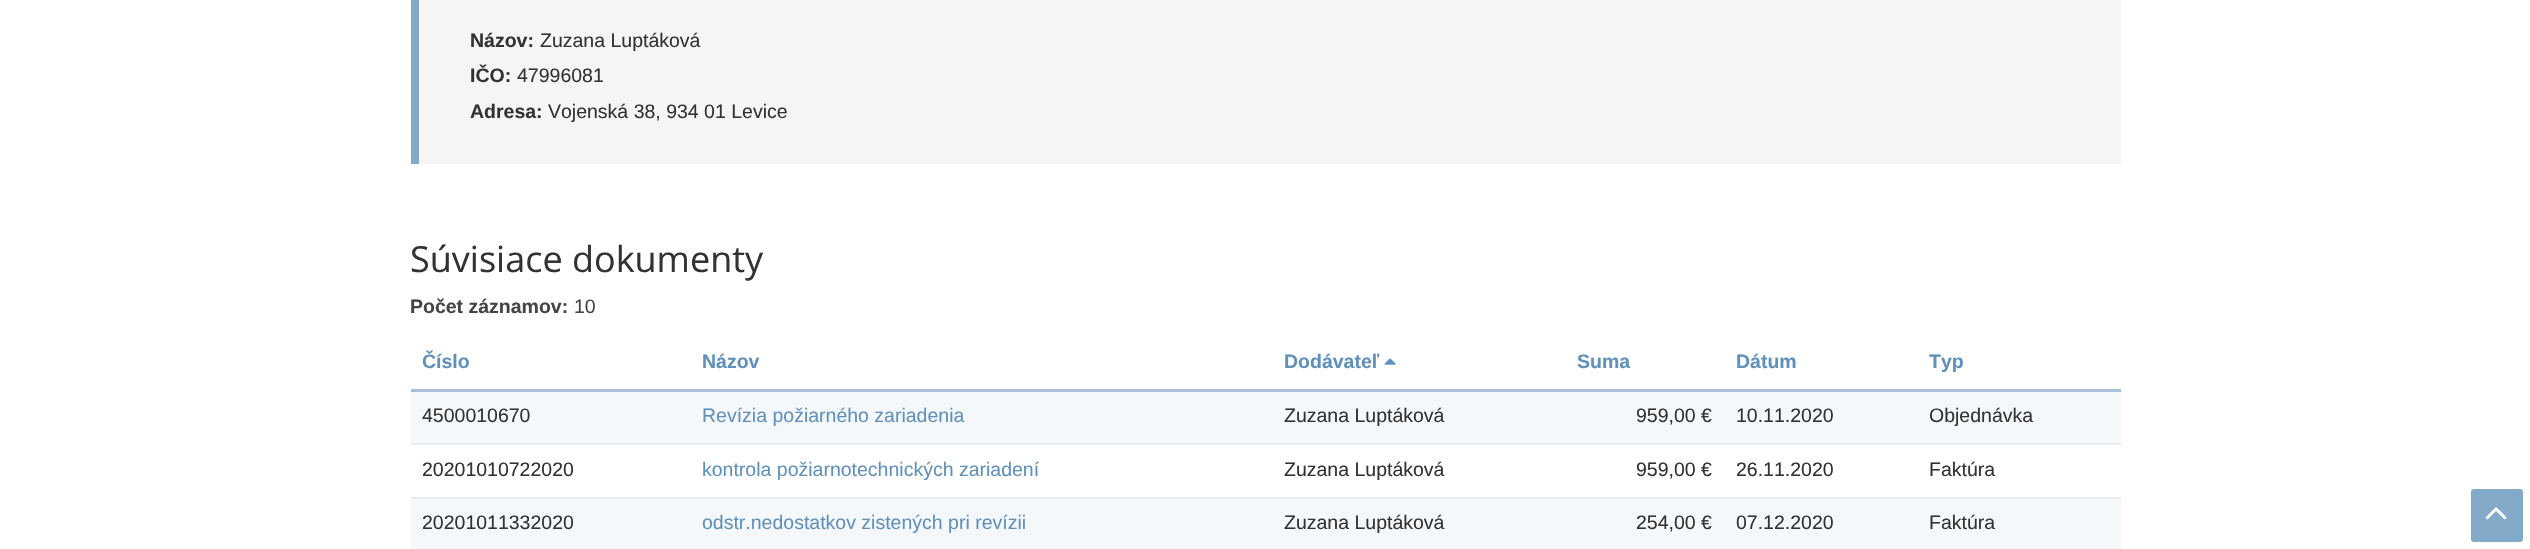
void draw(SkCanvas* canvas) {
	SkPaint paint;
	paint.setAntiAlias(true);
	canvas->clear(0xffffffff);
	paint.setColor(0xfff5f5f5);
	canvas->drawRect(SkRect::MakeXYWH(419, 0, 1702, 164), paint);
	paint.setColor(0xff84aac9);
	canvas->drawRect(SkRect::MakeXYWH(411, 0, 8, 164), paint);
	SkFont f1(fontMgr->matchFamilyStyle("Liberation Sans", SkFontStyle::Bold()), 19.5);
	f1.setSubpixel(true);
	paint.setColor(0xff333333);
	canvas->drawString("Názov:", 470, 47, f1, paint);
	SkFont f2(fontMgr->matchFamilyStyle("Liberation Sans", SkFontStyle::Normal()), 19.5);
	f2.setSubpixel(true);
	canvas->drawString("Zuzana Luptáková", 540, 47, f2, paint);
	canvas->drawString("IČO:", 470, 82, f1, paint);
	canvas->drawString("47996081", 517, 82, f2, paint);
	canvas->drawString("Adresa:", 470, 118, f1, paint);
	canvas->drawString("Vojenská 38, 934 01 Levice", 548, 118, f2, paint);
	SkFont f3(fontMgr->matchFamilyStyle("Open Sans", SkFontStyle::Normal()), 36);
	f3.setSubpixel(true);
	canvas->drawString("Súvisiace dokumenty", 410, 272, f3, paint);
	paint.setColor(0xff444444);
	canvas->drawString("Počet záznamov:", 410, 313, f1, paint);
	canvas->drawString("10", 574, 313, f2, paint);
	paint.setColor(0xff6091ba);
	canvas->drawString("Číslo", 422, 368, f1, paint);
	canvas->drawString("Názov", 702, 368, f1, paint);
	canvas->drawString("Dodávateľ", 1284, 368, f1, paint);
	canvas->drawImageRect(SkImages::DeferredFromEncodedData(SkData::MakeFromFileName("img1.png")), SkRect::MakeXYWH(1384, 358, 12, 7), SkSamplingOptions());
	canvas->drawString("Suma", 1577, 368, f1, paint);
	canvas->drawString("Dátum", 1736, 368, f1, paint);
	paint.setColor(0xffa7c2d9);
	canvas->drawRect(SkRect::MakeXYWH(411, 389, 1710, 3), paint);
	paint.setColor(0xff6091ba);
	canvas->drawString("Typ", 1929, 368, f1, paint);
	paint.setColor(0xfff5f8fb);
	canvas->drawRect(SkRect::MakeXYWH(411, 392, 1710, 51), paint);
	paint.setColor(0xff333333);
	canvas->drawString("4500010670", 422, 422, f2, paint);
	paint.setColor(0xff6091ba);
	canvas->drawString("Revízia požiarného zariadenia", 702, 422, f2, paint);
	paint.setColor(0xff333333);
	canvas->drawString("Zuzana Luptáková", 1284, 422, f2, paint);
	canvas->drawString("959,00 €", 1636, 422, f2, paint);
	canvas->drawString("10.11.2020", 1736, 422, f2, paint);
	canvas->drawString("Objednávka", 1929, 422, f2, paint);
	canvas->drawString("20201010722020", 422, 476, f2, paint);
	paint.setColor(0xff6091ba);
	canvas->drawString("kontrola požiarnotechnických zariadení", 702, 476, f2, paint);
	paint.setColor(0xff333333);
	canvas->drawString("Zuzana Luptáková", 1284, 476, f2, paint);
	canvas->drawString("959,00 €", 1636, 476, f2, paint);
	canvas->drawString("26.11.2020", 1736, 476, f2, paint);
	paint.setColor(0xffebebeb);
	canvas->drawRect(SkRect::MakeXYWH(411, 443, 1710, 2), paint);
	paint.setColor(0xff333333);
	canvas->drawString("Faktúra", 1929, 476, f2, paint);
	paint.setColor(0xfff5f8fb);
	canvas->drawRect(SkRect::MakeXYWH(411, 499, 1710, 50), paint);
	paint.setColor(0xff333333);
	canvas->drawString("20201011332020", 422, 529, f2, paint);
	paint.setColor(0xff6091ba);
	canvas->drawString("odstr.nedostatkov zistených pri revízii", 702, 529, f2, paint);
	paint.setColor(0xff333333);
	canvas->drawString("Zuzana Luptáková", 1284, 529, f2, paint);
	canvas->drawString("254,00 €", 1636, 529, f2, paint);
	canvas->drawString("07.12.2020", 1736, 529, f2, paint);
	paint.setColor(0xffebebeb);
	canvas->drawRect(SkRect::MakeXYWH(411, 497, 1710, 2), paint);
	paint.setColor(0xff333333);
	canvas->drawString("Faktúra", 1929, 529, f2, paint);
	paint.setColor(0xff84aac9);
	canvas->drawRoundRect(SkRect::MakeXYWH(2471, 489, 52, 53), 3, 3, paint);
	canvas->drawImageRect(SkImages::DeferredFromEncodedData(SkData::MakeFromFileName("img2.png")), SkRect::MakeXYWH(2485, 507, 22, 13), SkSamplingOptions());
}
